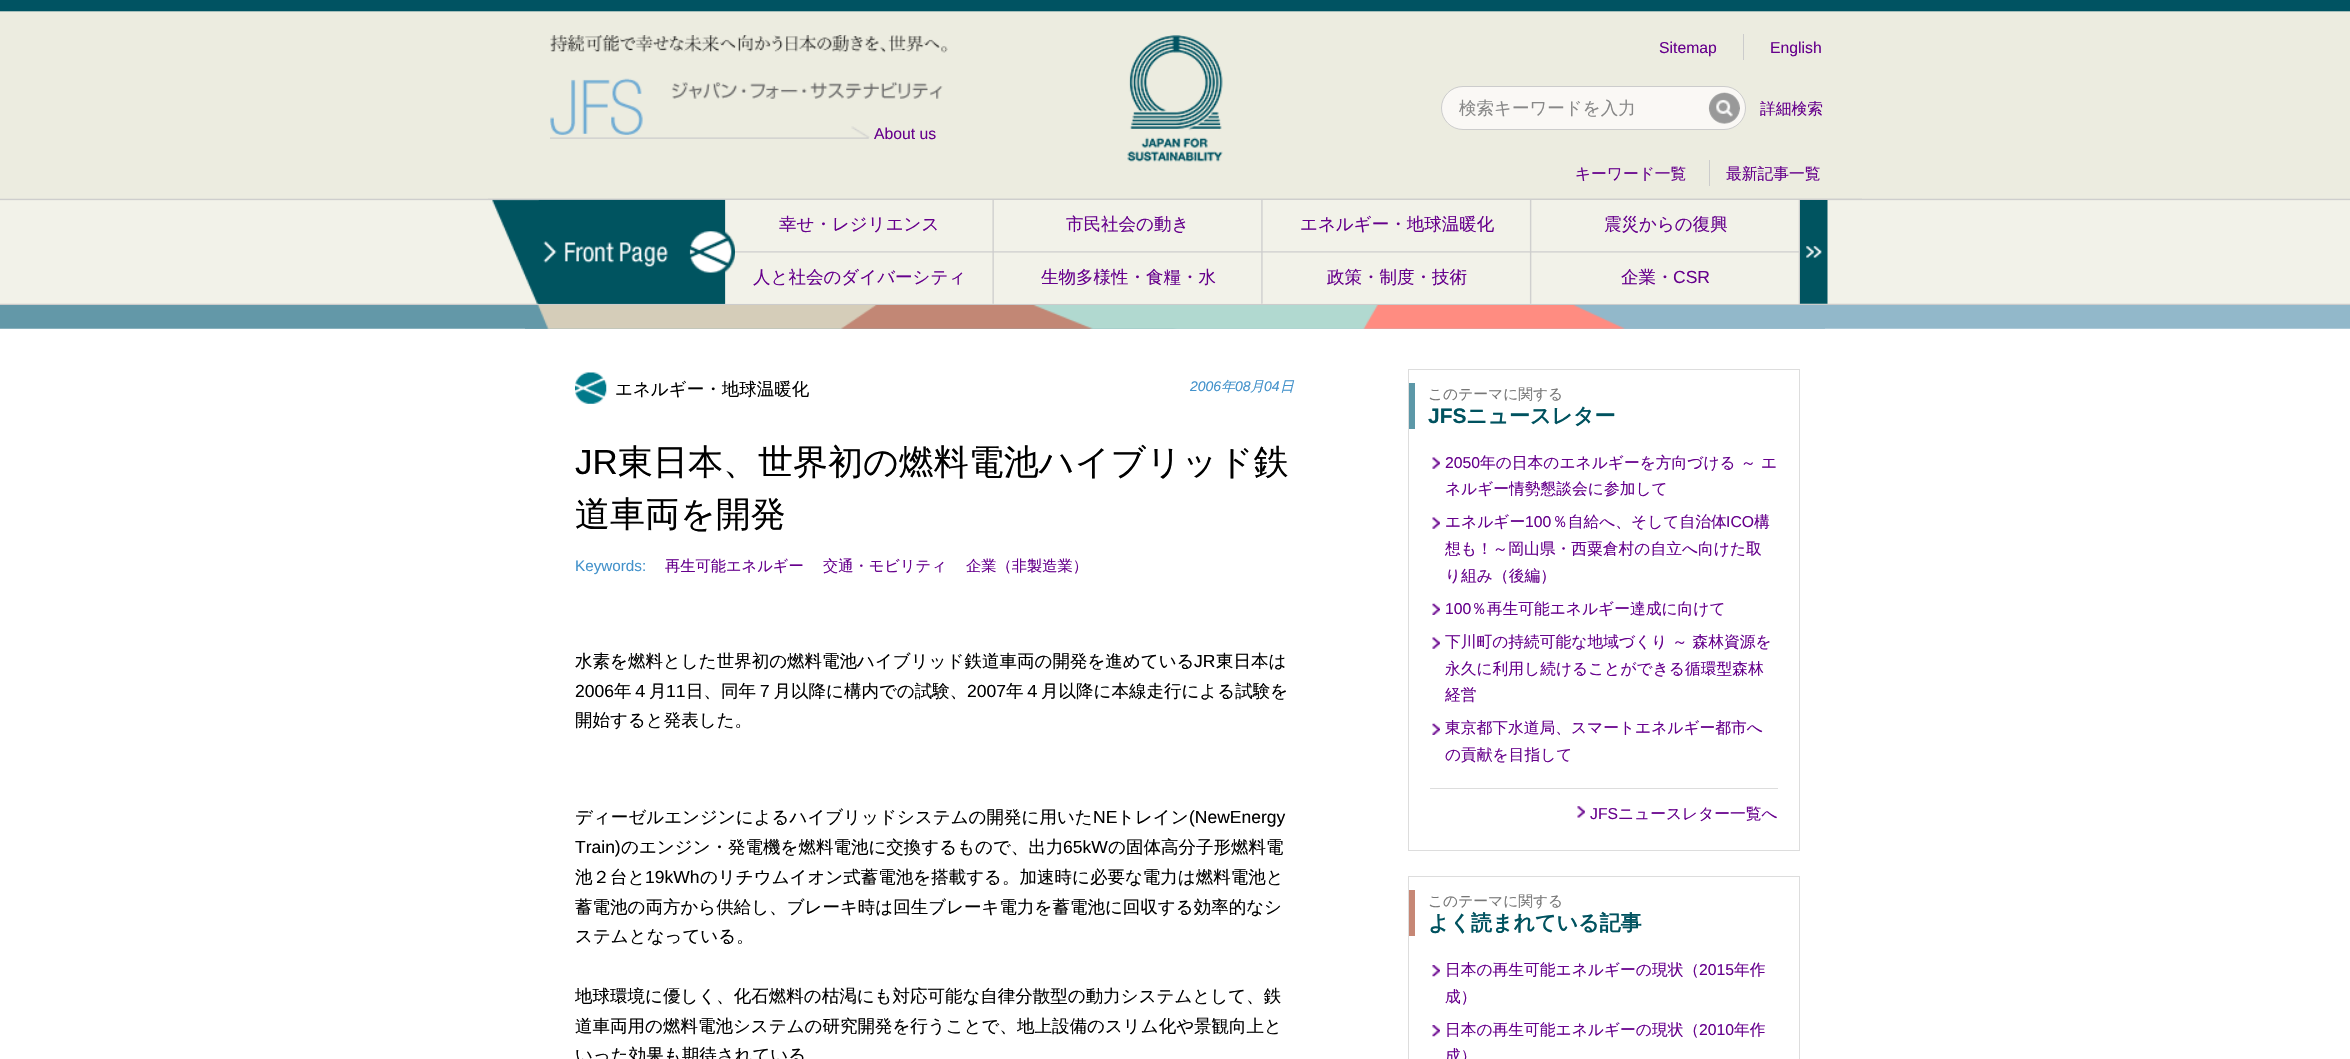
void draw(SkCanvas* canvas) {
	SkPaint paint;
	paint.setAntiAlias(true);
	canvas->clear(0xffffffff);
	canvas->drawImageRect(SkImages::DeferredFromEncodedData(SkData::MakeFromFileName("img1.png")), SkRect::MakeXYWH(0, 0, 2350, 199), SkSamplingOptions());
	canvas->drawImageRect(SkImages::DeferredFromEncodedData(SkData::MakeFromFileName("img2.png")), SkRect::MakeXYWH(550, 35, 398, 18), SkSamplingOptions());
	canvas->drawImageRect(SkImages::DeferredFromEncodedData(SkData::MakeFromFileName("img3.png")), SkRect::MakeXYWH(1127, 35, 96, 127), SkSamplingOptions());
	paint.setColor(0xffcccccc);
	canvas->drawRect(SkRect::MakeXYWH(1743, 34, 1, 26), paint);
	SkFont f1(fontMgr->matchFamilyStyle("Liberation Sans", SkFontStyle::Normal()), 15.75);
	f1.setSubpixel(true);
	paint.setColor(0xff66008c);
	canvas->drawString("Sitemap", 1659, 53, f1, paint);
	canvas->drawString("English", 1770, 53, f1, paint);
	canvas->drawImageRect(SkImages::DeferredFromEncodedData(SkData::MakeFromFileName("img4.png")), SkRect::MakeXYWH(550, 78, 393, 57), SkSamplingOptions());
	paint.setColor(0xfffaf8f5);
	canvas->drawRoundRect(SkRect::MakeXYWH(1441.5, 86.5, 304, 43), 21.5, 21.5, paint);
	paint.setStroke(true);
	paint.setStrokeWidth(1);
	paint.setColor(0xffcccccc);
	canvas->drawRoundRect(SkRect::MakeXYWH(1441.5, 86.5, 304, 43), 21.5, 21.5, paint);
	SkFont f2(fontMgr->matchFamilyStyle("WenQuanYi Zen Hei", SkFontStyle(500, SkFontStyle::kNormal_Width, SkFontStyle::kUpright_Slant)), 17.5);
	f2.setSubpixel(true);
	paint.setStroke(false);
	paint.setColor(0xff888888);
	canvas->drawString("検索キーワードを入力", 1459, 114, f2, paint);
	canvas->drawImageRect(SkImages::DeferredFromEncodedData(SkData::MakeFromFileName("img5.png")), SkRect::MakeXYWH(1708, 92, 32, 32), SkSamplingOptions());
	SkFont f3(fontMgr->matchFamilyStyle("WenQuanYi Zen Hei", SkFontStyle(500, SkFontStyle::kNormal_Width, SkFontStyle::kUpright_Slant)), 15.75);
	f3.setSubpixel(true);
	paint.setColor(0xff66008c);
	canvas->drawString("詳細検索", 1760, 114, f3, paint);
	canvas->drawImageRect(SkImages::DeferredFromEncodedData(SkData::MakeFromFileName("img6.png")), SkRect::MakeXYWH(550, 126, 320, 13), SkSamplingOptions());
	canvas->drawString("About us", 874, 139, f1, paint);
	paint.setColor(0xffcccccc);
	canvas->drawRect(SkRect::MakeXYWH(1709, 160, 1, 26), paint);
	paint.setColor(0xff66008c);
	canvas->drawString("キーワード一覧", 1575, 179, f3, paint);
	canvas->drawString("最新記事一覧", 1726, 179, f3, paint);
	canvas->drawImageRect(SkImages::DeferredFromEncodedData(SkData::MakeFromFileName("img7.png")), SkRect::MakeXYWH(0, 198, 2350, 107), SkSamplingOptions());
	canvas->drawImageRect(SkImages::DeferredFromEncodedData(SkData::MakeFromFileName("img8.png")), SkRect::MakeXYWH(488, 198, 1374, 106), SkSamplingOptions());
	canvas->drawImageRect(SkImages::DeferredFromEncodedData(SkData::MakeFromFileName("img10.png")), SkRect::MakeXYWH(725, 200, 1074, 104), SkSamplingOptions());
	canvas->drawImageRect(SkImages::DeferredFromEncodedData(SkData::MakeFromFileName("img9.png")), SkRect::MakeXYWH(538, 200, 197, 104), SkSamplingOptions());
	canvas->drawString("幸せ・レジリエンス", 779, 230, f2, paint);
	canvas->drawString("市民社会の動き", 1066, 230, f2, paint);
	canvas->drawString("エネルギー・地球温暖化", 1300, 230, f2, paint);
	canvas->drawString("震災からの復興", 1604, 230, f2, paint);
	canvas->drawString("人と社会のダイバーシティ", 753, 283, f2, paint);
	canvas->drawString("生物多様性・食糧・水", 1041, 283, f2, paint);
	canvas->drawString("政策・制度・技術", 1327, 283, f2, paint);
	canvas->drawString("企業・", 1621, 283, f2, paint);
	SkFont f4(fontMgr->matchFamilyStyle("Liberation Sans", SkFontStyle::Normal()), 17.5);
	f4.setSubpixel(true);
	canvas->drawString("CSR", 1673, 283, f4, paint);
	canvas->drawImageRect(SkImages::DeferredFromEncodedData(SkData::MakeFromFileName("img11.png")), SkRect::MakeXYWH(1800, 200, 28, 104), SkSamplingOptions());
	canvas->drawImageRect(SkImages::DeferredFromEncodedData(SkData::MakeFromFileName("img12.png")), SkRect::MakeXYWH(0, 305, 2350, 24), SkSamplingOptions());
	canvas->drawImageRect(SkImages::DeferredFromEncodedData(SkData::MakeFromFileName("img13.png")), SkRect::MakeXYWH(525, 305, 1300, 24), SkSamplingOptions());
	canvas->drawImageRect(SkImages::DeferredFromEncodedData(SkData::MakeFromFileName("img14.png")), SkRect::MakeXYWH(575, 372, 32, 32), SkSamplingOptions());
	paint.setColor(0xff000000);
	canvas->drawString("エネルギー・地球温暖化", 615, 395, f2, paint);
	SkFont f5(fontMgr->matchFamilyStyle("Liberation Sans", SkFontStyle::Italic()), 14);
	f5.setSubpixel(true);
	paint.setColor(0xff4392cb);
	canvas->drawString("2006", 1190, 391, f5, paint);
	SkFont f6(fontMgr->matchFamilyStyle("WenQuanYi Zen Hei", SkFontStyle(500, SkFontStyle::kNormal_Width, SkFontStyle::kItalic_Slant)), 14);
	f6.setSubpixel(true);
	canvas->drawString("年", 1221, 391, f6, paint);
	canvas->drawString("08", 1235, 391, f5, paint);
	canvas->drawString("月", 1250, 391, f6, paint);
	canvas->drawString("04", 1264, 391, f5, paint);
	canvas->drawString("日", 1280, 391, f6, paint);
	SkFont f7(fontMgr->matchFamilyStyle("Liberation Sans", SkFontStyle::Normal()), 35);
	f7.setSubpixel(true);
	paint.setColor(0xff000000);
	canvas->drawString("JR", 575, 474, f7, paint);
	SkFont f8(fontMgr->matchFamilyStyle("WenQuanYi Zen Hei", SkFontStyle(500, SkFontStyle::kNormal_Width, SkFontStyle::kUpright_Slant)), 35);
	f8.setSubpixel(true);
	canvas->drawString("東日本、世界初の燃料電池ハイブリッド鉄", 618, 474, f8, paint);
	canvas->drawString("道車両を開発", 575, 526, f8, paint);
	SkFont f9(fontMgr->matchFamilyStyle("Liberation Sans", SkFontStyle::Normal()), 15.25);
	f9.setSubpixel(true);
	paint.setColor(0xff4392cb);
	canvas->drawString("Keywords:", 575, 571, f9, paint);
	SkFont f10(fontMgr->matchFamilyStyle("WenQuanYi Zen Hei", SkFontStyle(500, SkFontStyle::kNormal_Width, SkFontStyle::kUpright_Slant)), 15.25);
	f10.setSubpixel(true);
	paint.setColor(0xff66008c);
	canvas->drawString("再生可能エネルギー", 665, 571, f10, paint);
	canvas->drawString("交通・モビリティ", 823, 571, f10, paint);
	canvas->drawString("企業（非製造業）", 966, 571, f10, paint);
	paint.setColor(0xff000000);
	canvas->drawString("水素を燃料とした世界初の燃料電池ハイブリッド鉄道車両の開発を進めている", 575, 667, f2, paint);
	canvas->drawString("JR", 1194, 667, f4, paint);
	canvas->drawString("東日本は", 1216, 667, f2, paint);
	canvas->drawString("2006", 575, 697, f4, paint);
	canvas->drawString("年４月", 614, 697, f2, paint);
	canvas->drawString("11", 666, 697, f4, paint);
	canvas->drawString("日、同年７月以降に構内での試験、", 686, 697, f2, paint);
	canvas->drawString("2007", 967, 697, f4, paint);
	canvas->drawString("年４月以降に本線走行による試験を", 1006, 697, f2, paint);
	canvas->drawString("開始すると発表した。", 575, 726, f2, paint);
	canvas->drawString("ディーゼルエンジンによるハイブリッドシステムの開発に用いた", 575, 823, f2, paint);
	canvas->drawString("NE", 1093, 823, f4, paint);
	canvas->drawString("トレイン", 1117, 823, f2, paint);
	canvas->drawString("(NewEnergy", 1189, 823, f4, paint);
	canvas->drawString("Train)", 575, 853, f4, paint);
	canvas->drawString("のエンジン・発電機を燃料電池に交換するもので、出力", 621, 853, f2, paint);
	canvas->drawString("65kW", 1063, 853, f4, paint);
	canvas->drawString("の固体高分子形燃料電", 1108, 853, f2, paint);
	canvas->drawString("池２台と", 575, 883, f2, paint);
	canvas->drawString("19kWh", 645, 883, f4, paint);
	canvas->drawString("のリチウムイオン式蓄電池を搭載する。加速時に必要な電力は燃料電池と", 700, 883, f2, paint);
	canvas->drawString("蓄電池の両方から供給し、ブレーキ時は回生ブレーキ電力を蓄電池に回収する効率的なシ", 575, 913, f2, paint);
	canvas->drawString("ステムとなっている。", 575, 942, f2, paint);
	canvas->drawString("地球環境に優しく、化石燃料の枯渇にも対応可能な自律分散型の動力システムとして、鉄", 575, 1002, f2, paint);
	canvas->drawString("道車両用の燃料電池システムの研究開発を行うことで、地上設備のスリム化や景観向上と", 575, 1032, f2, paint);
	canvas->drawString("いった効果も期待されている", 575, 1061, f2, paint);
	paint.setStroke(true);
	paint.setColor(0xffdddddd);
	canvas->drawRect(SkRect::MakeXYWH(1408.5, 369.5, 391, 481), paint);
	paint.setStroke(false);
	paint.setColor(0xff5c98a8);
	canvas->drawRect(SkRect::MakeXYWH(1409, 383, 6, 46), paint);
	SkFont f11(fontMgr->matchFamilyStyle("WenQuanYi Zen Hei", SkFontStyle(500, SkFontStyle::kNormal_Width, SkFontStyle::kUpright_Slant)), 14.75);
	f11.setSubpixel(true);
	paint.setColor(0xff777777);
	canvas->drawString("このテーマに関する", 1428, 399, f11, paint);
	SkFont f12(fontMgr->matchFamilyStyle("Liberation Sans", SkFontStyle::Bold()), 21);
	f12.setSubpixel(true);
	paint.setColor(0xff00525f);
	canvas->drawString("JFS", 1428, 423, f12, paint);
	SkFont f13(fontMgr->matchFamilyStyle("WenQuanYi Zen Hei", SkFontStyle::Bold()), 21);
	f13.setSubpixel(true);
	canvas->drawString("ニュースレター", 1466, 423, f13, paint);
	canvas->drawImageRect(SkImages::DeferredFromEncodedData(SkData::MakeFromFileName("img15.png")), SkRect::MakeXYWH(1432, 457, 8, 12), SkSamplingOptions());
	paint.setColor(0xff66008c);
	canvas->drawString("2050", 1445, 468, f1, paint);
	canvas->drawString("年の日本のエネルギーを方向づける ～ エ", 1480, 468, f3, paint);
	canvas->drawString("ネルギー情勢懇談会に参加して", 1445, 494, f3, paint);
	canvas->drawImageRect(SkImages::DeferredFromEncodedData(SkData::MakeFromFileName("img15.png")), SkRect::MakeXYWH(1432, 517, 8, 12), SkSamplingOptions());
	canvas->drawString("エネルギー", 1445, 527, f3, paint);
	canvas->drawString("100", 1525, 527, f1, paint);
	canvas->drawString("％自給へ、そして自治体", 1552, 527, f3, paint);
	canvas->drawString("ICO", 1726, 527, f1, paint);
	canvas->drawString("構", 1754, 527, f3, paint);
	canvas->drawString("想も！～岡山県・西粟倉村の自立へ向けた取", 1445, 554, f3, paint);
	canvas->drawString("り組み（後編）", 1445, 581, f3, paint);
	canvas->drawImageRect(SkImages::DeferredFromEncodedData(SkData::MakeFromFileName("img16.png")), SkRect::MakeXYWH(1432, 603, 8, 12), SkSamplingOptions());
	canvas->drawString("100", 1445, 614, f1, paint);
	canvas->drawString("％再生可能エネルギー達成に向けて", 1471, 614, f3, paint);
	canvas->drawImageRect(SkImages::DeferredFromEncodedData(SkData::MakeFromFileName("img15.png")), SkRect::MakeXYWH(1432, 637, 8, 12), SkSamplingOptions());
	canvas->drawString("下川町の持続可能な地域づくり ～ 森林資源を", 1445, 647, f3, paint);
	canvas->drawString("永久に利用し続けることができる循環型森林", 1445, 674, f3, paint);
	canvas->drawString("経営", 1445, 700, f3, paint);
	canvas->drawImageRect(SkImages::DeferredFromEncodedData(SkData::MakeFromFileName("img16.png")), SkRect::MakeXYWH(1432, 723, 8, 12), SkSamplingOptions());
	canvas->drawString("東京都下水道局、スマートエネルギー都市へ", 1445, 733, f3, paint);
	canvas->drawString("の貢献を目指して", 1445, 760, f3, paint);
	paint.setColor(0xffdddddd);
	canvas->drawRect(SkRect::MakeXYWH(1430, 788, 348, 1), paint);
	canvas->drawImageRect(SkImages::DeferredFromEncodedData(SkData::MakeFromFileName("img17.png")), SkRect::MakeXYWH(1577, 806, 8, 12), SkSamplingOptions());
	paint.setColor(0xff66008c);
	canvas->drawString("JFS", 1590, 819, f1, paint);
	canvas->drawString("ニュースレター一覧へ", 1618, 819, f3, paint);
	paint.setStroke(true);
	paint.setColor(0xffdddddd);
	canvas->drawRect(SkRect::MakeXYWH(1408.5, 876.5, 391, 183), paint);
	paint.setStroke(false);
	paint.setColor(0xffc68775);
	canvas->drawRect(SkRect::MakeXYWH(1409, 890, 6, 46), paint);
	paint.setColor(0xff777777);
	canvas->drawString("このテーマに関する", 1428, 906, f11, paint);
	paint.setColor(0xff00525f);
	canvas->drawString("よく読まれている記事", 1428, 930, f13, paint);
	canvas->drawImageRect(SkImages::DeferredFromEncodedData(SkData::MakeFromFileName("img18.png")), SkRect::MakeXYWH(1432, 965, 8, 12), SkSamplingOptions());
	paint.setColor(0xff66008c);
	canvas->drawString("日本の再生可能エネルギーの現状（", 1445, 975, f3, paint);
	canvas->drawString("2015", 1699, 975, f1, paint);
	canvas->drawString("年作", 1734, 975, f3, paint);
	canvas->drawString("成）", 1445, 1002, f3, paint);
	canvas->drawImageRect(SkImages::DeferredFromEncodedData(SkData::MakeFromFileName("img19.png")), SkRect::MakeXYWH(1432, 1025, 8, 12), SkSamplingOptions());
	canvas->drawString("日本の再生可能エネルギーの現状（", 1445, 1035, f3, paint);
	canvas->drawString("2010", 1699, 1035, f1, paint);
	canvas->drawString("年作", 1734, 1035, f3, paint);
	canvas->drawString("成）", 1445, 1061, f3, paint);
}
